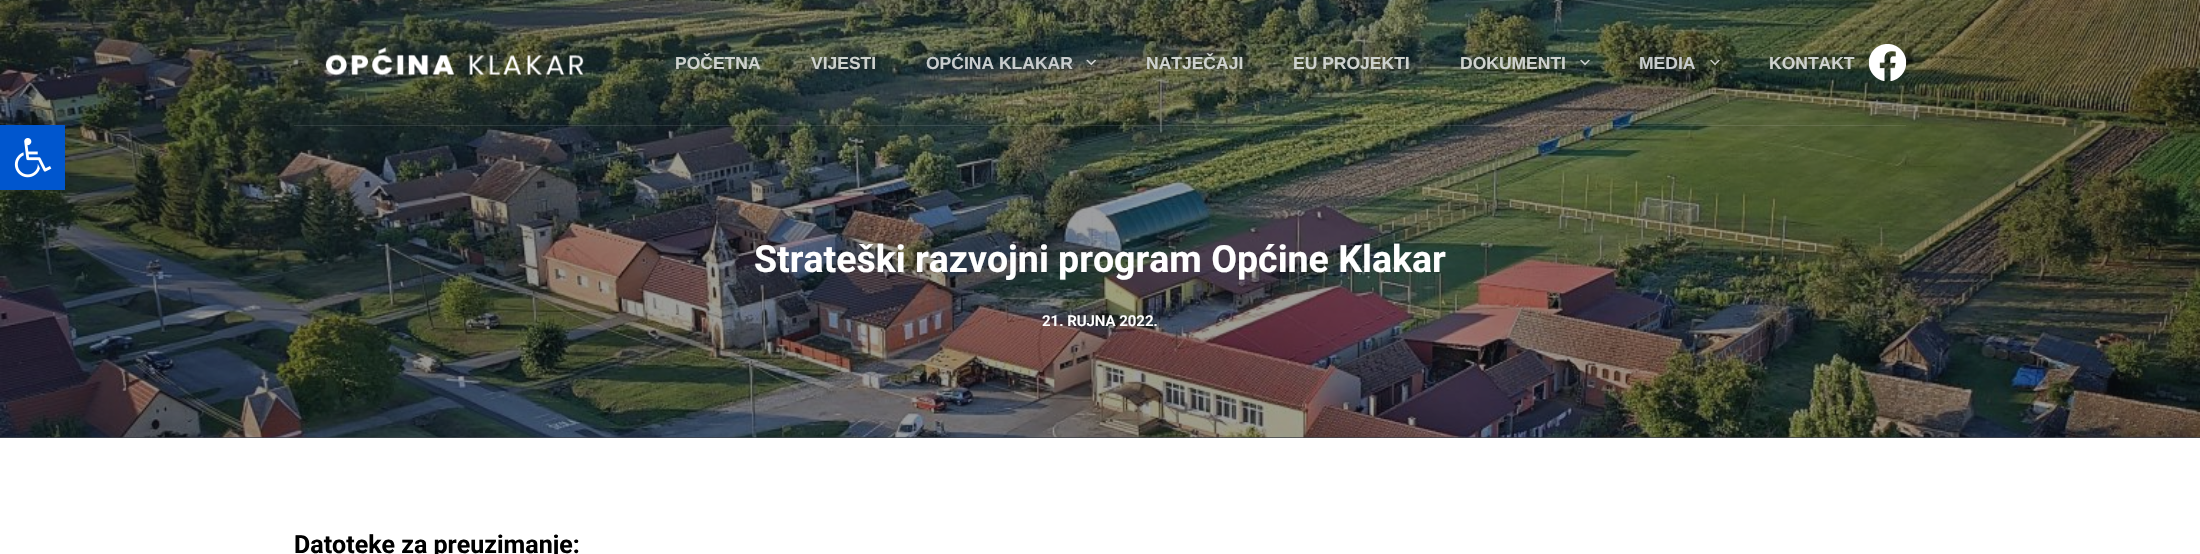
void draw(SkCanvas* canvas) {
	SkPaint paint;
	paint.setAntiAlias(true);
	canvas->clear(0xffffffff);
	paint.setColor(0xff3e434a);
	canvas->drawRect(SkRect::MakeXYWH(0, 437, 2200, 1), paint);
	canvas->drawImageRect(SkImages::DeferredFromEncodedData(SkData::MakeFromFileName("img7.png")), SkRect::MakeXYWH(0, 0, 2200, 438), SkSamplingOptions());
	paint.setColor(0x1a000000);
	paint.setMaskFilter(SkMaskFilter::MakeBlur(kNormal_SkBlurStyle, 6));
	canvas->drawRect(SkRect::MakeXYWH(0, 125, 65, 65), paint);
	paint.setMaskFilter(nullptr);
	paint.setColor(0xff0056ce);
	canvas->drawRect(SkRect::MakeXYWH(0, 125, 65, 65), paint);
	canvas->drawImageRect(SkImages::DeferredFromEncodedData(SkData::MakeFromFileName("img1.png")), SkRect::MakeXYWH(14, 138, 38, 40), SkSamplingOptions());
	paint.setColor(0x1affffff);
	canvas->drawRect(SkRect::MakeXYWH(294, 125, 1612, 1), paint);
	canvas->drawImageRect(SkImages::DeferredFromEncodedData(SkData::MakeFromFileName("img2.png")), SkRect::MakeXYWH(325, 47, 259, 29), SkSamplingOptions());
	SkFont f1(fontMgr->matchFamilyStyle("Liberation Sans", SkFontStyle::Bold()), 17.5);
	f1.setSubpixel(true);
	paint.setColor(0xffced2ce);
	canvas->drawString("POČETNA", 675, 69, f1, paint);
	canvas->drawString("VIJESTI", 811, 69, f1, paint);
	paint.setColor(0xffc8cccd);
	canvas->drawString("OPĆINA KLAKAR", 926, 69, f1, paint);
	canvas->drawImageRect(SkImages::DeferredFromEncodedData(SkData::MakeFromFileName("img3.png")), SkRect::MakeXYWH(1086, 59, 10, 7), SkSamplingOptions());
	paint.setColor(0xffced2ce);
	canvas->drawString("NATJEČAJI", 1146, 69, f1, paint);
	canvas->drawString("EU PROJEKTI", 1293, 69, f1, paint);
	canvas->drawString("DOKUMENTI", 1460, 69, f1, paint);
	canvas->drawImageRect(SkImages::DeferredFromEncodedData(SkData::MakeFromFileName("img4.png")), SkRect::MakeXYWH(1580, 59, 10, 7), SkSamplingOptions());
	paint.setColor(0xffc8cccd);
	canvas->drawString("MEDIA", 1639, 69, f1, paint);
	canvas->drawImageRect(SkImages::DeferredFromEncodedData(SkData::MakeFromFileName("img5.png")), SkRect::MakeXYWH(1710, 59, 10, 7), SkSamplingOptions());
	paint.setColor(0xffced2ce);
	canvas->drawString("KONTAKT", 1769, 69, f1, paint);
	canvas->drawImageRect(SkImages::DeferredFromEncodedData(SkData::MakeFromFileName("img6.png")), SkRect::MakeXYWH(1869, 44, 37, 37), SkSamplingOptions());
	SkFont f2(fontMgr->matchFamilyStyle("Roboto", SkFontStyle::Bold()), 37.5);
	f2.setSubpixel(true);
	paint.setColor(0xffffffff);
	canvas->drawString("Strateški razvojni program Općine Klakar", 754, 272, f2, paint);
	SkFont f3(fontMgr->matchFamilyStyle("Roboto", SkFontStyle(600, SkFontStyle::kNormal_Width, SkFontStyle::kUpright_Slant)), 15);
	f3.setSubpixel(true);
	canvas->drawString("21. RUJNA 2022.", 1042, 326, f3, paint);
	SkFont f4(fontMgr->matchFamilyStyle("Roboto", SkFontStyle::Bold()), 25);
	f4.setSubpixel(true);
	paint.setColor(0xff000000);
	canvas->drawString("Datoteke za preuzimanje:", 294, 553, f4, paint);
}
